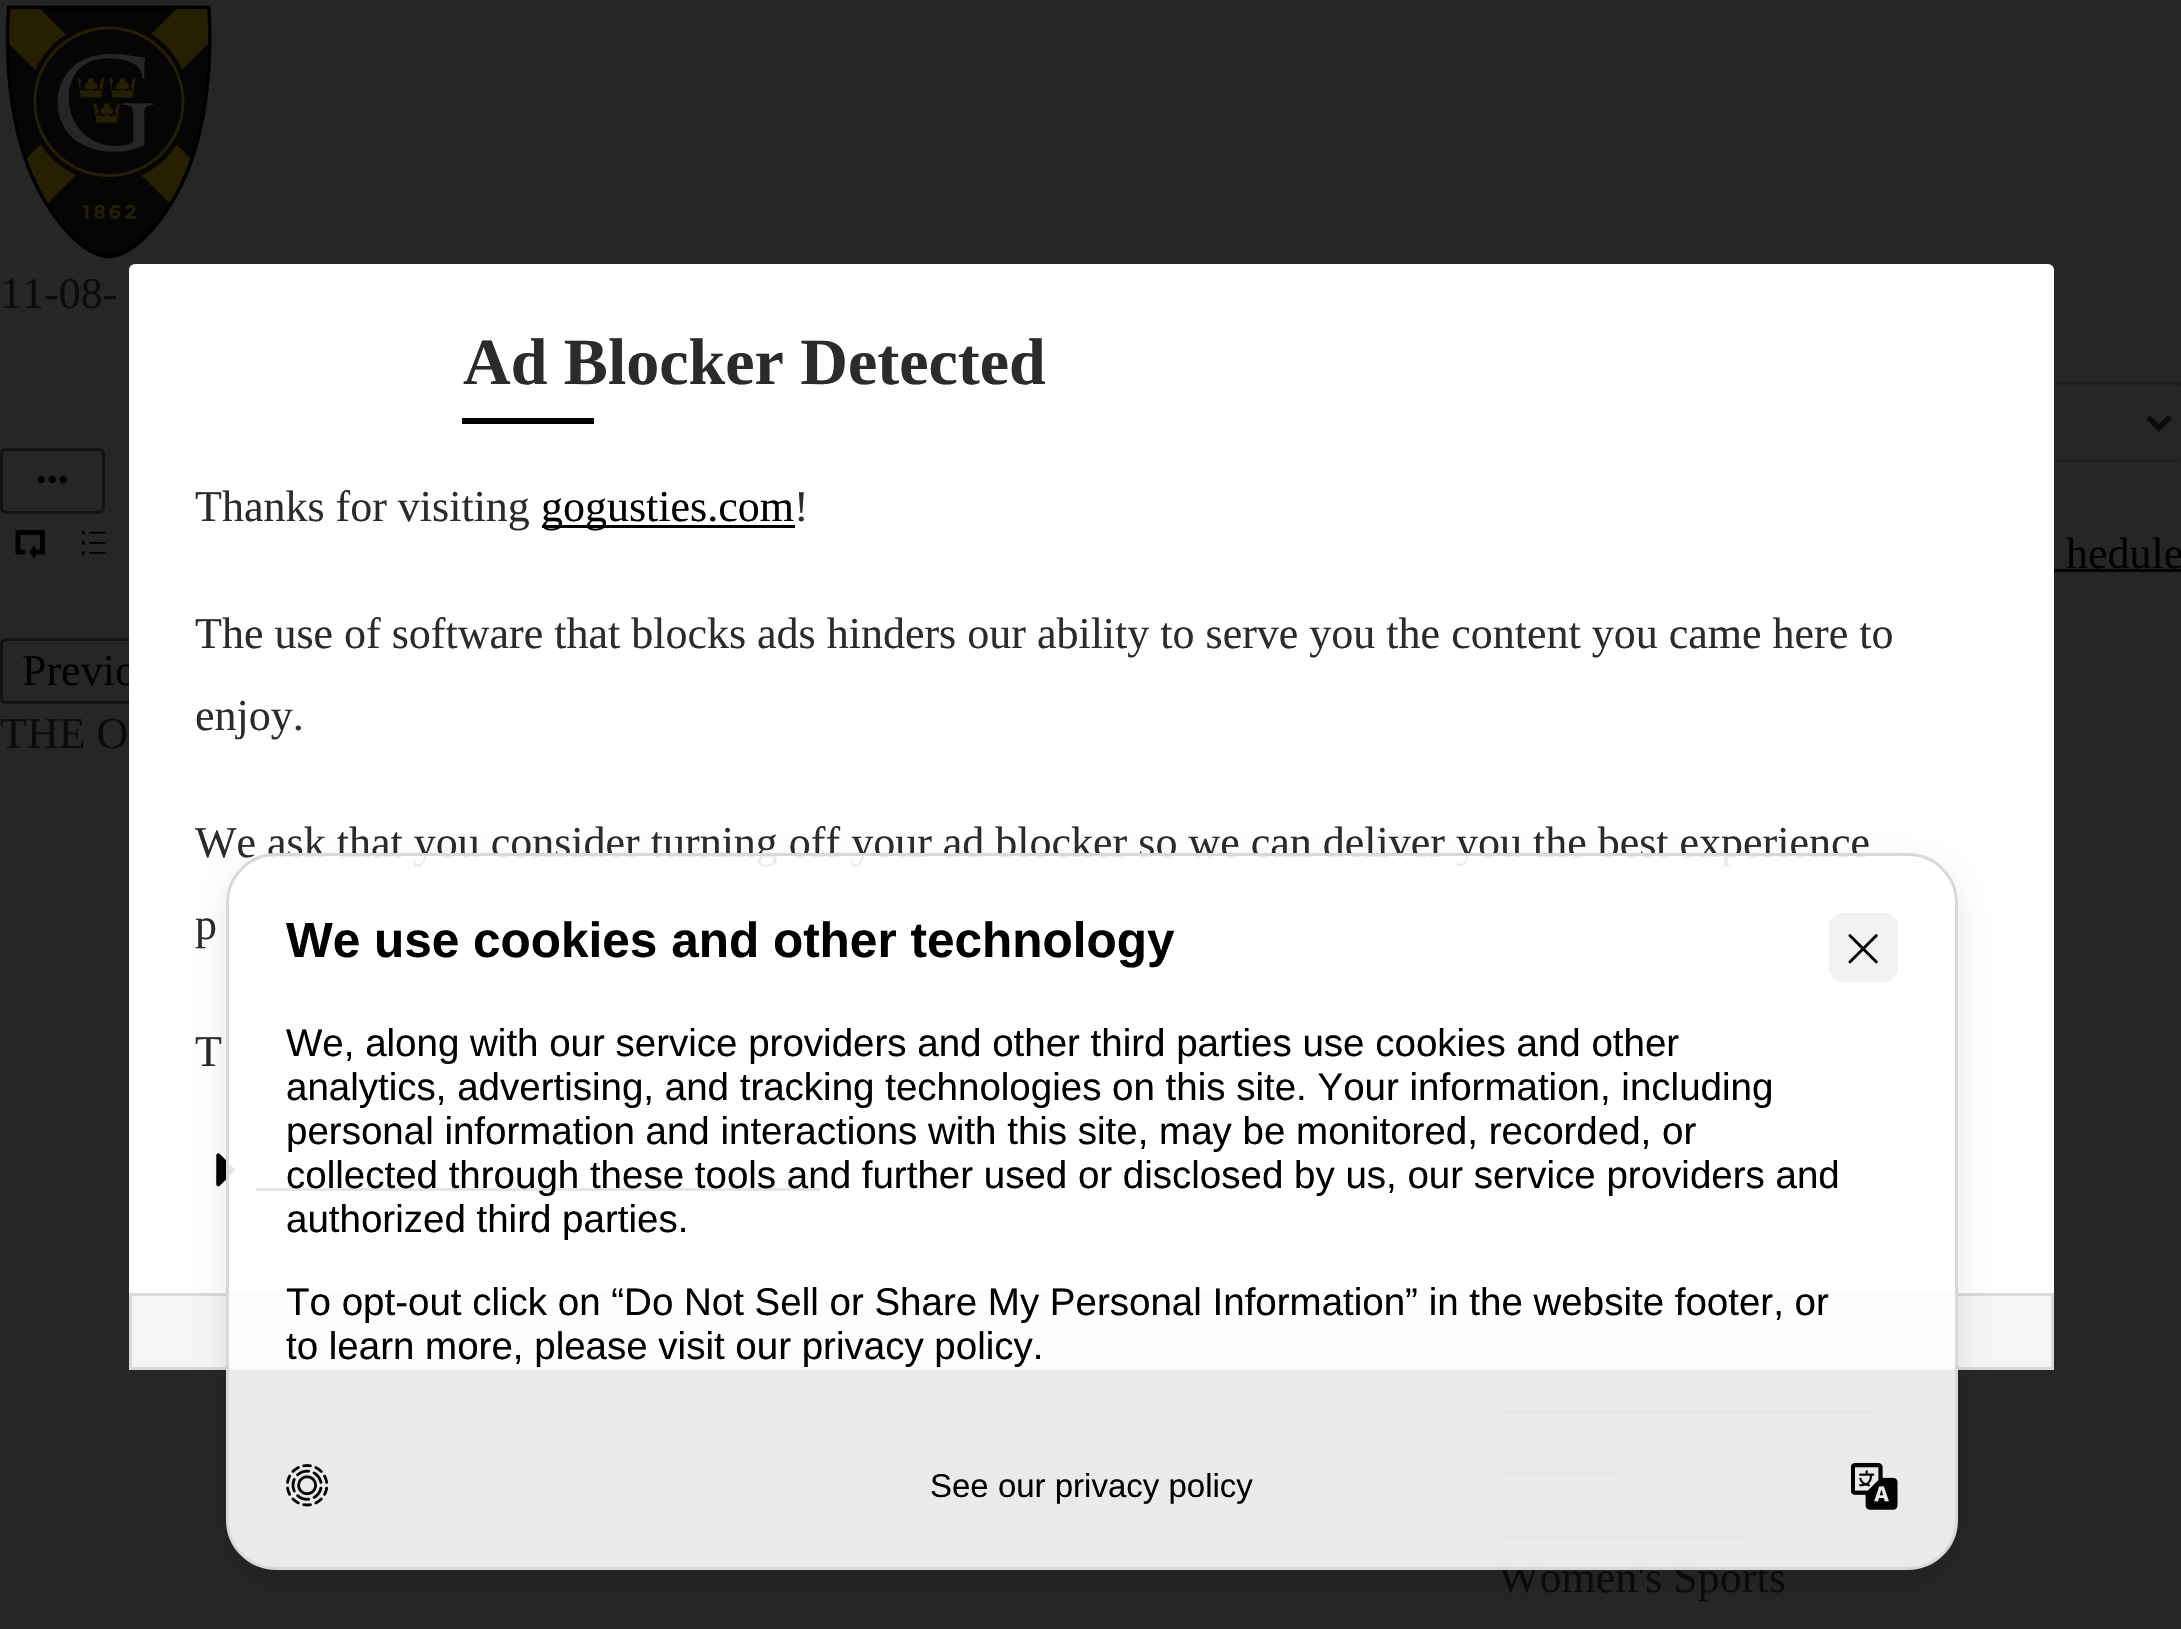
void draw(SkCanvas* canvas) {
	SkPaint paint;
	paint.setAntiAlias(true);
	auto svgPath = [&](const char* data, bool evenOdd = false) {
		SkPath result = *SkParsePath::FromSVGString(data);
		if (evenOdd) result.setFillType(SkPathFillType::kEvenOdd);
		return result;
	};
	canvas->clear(0xff262626);
	canvas->drawImageRect(SkImages::DeferredFromEncodedData(SkData::MakeFromFileName("img1.png")), SkRect::MakeXYWH(5, 5, 207, 254), SkSamplingOptions());
	SkFont f1(fontMgr->matchFamilyStyle("Liberation Serif", SkFontStyle::Normal()), 44);
	f1.setSubpixel(true);
	paint.setColor(0xff0b0b0b);
	canvas->drawString("11-08-", 0, 308, f1, paint);
	paint.setStroke(true);
	paint.setStrokeWidth(3);
	paint.setColor(0xff121212);
	canvas->drawRoundRect(SkRect::MakeXYWH(1.5, 449.5, 102, 63), 4.5, 4.5, paint);
	canvas->drawImageRect(SkImages::DeferredFromEncodedData(SkData::MakeFromFileName("img2.png")), SkRect::MakeXYWH(37, 475, 30, 9), SkSamplingOptions());
	canvas->drawImageRect(SkImages::DeferredFromEncodedData(SkData::MakeFromFileName("img3.png")), SkRect::MakeXYWH(15, 530, 30, 30), SkSamplingOptions());
	canvas->drawImageRect(SkImages::DeferredFromEncodedData(SkData::MakeFromFileName("img4.png")), SkRect::MakeXYWH(81, 530, 25, 25), SkSamplingOptions());
	canvas->drawRoundRect(SkRect::MakeXYWH(1.5, 639.5, 195, 63), 4.5, 4.5, paint);
	paint.setStroke(false);
	paint.setColor(0xff000000);
	canvas->drawString("Previo", 22, 685, f1, paint);
	paint.setStroke(true);
	paint.setColor(0xff1f1f1f);
	canvas->drawRoundRect(SkRect::MakeXYWH(1943.5, 383.5, 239, 77), 4.5, 4.5, paint);
	paint.setStrokeWidth(5.5);
	paint.setColor(0xff0b0b0b);
	canvas->drawPath(svgPath("M2148 417L2159 428L2170 417"), paint);
	paint.setStroke(false);
	paint.setColor(0xff000000);
	canvas->drawString("hedule", 2066, 568, f1, paint);
	canvas->drawRect(SkRect::MakeXYWH(2054, 569, 127, 3), paint);
	paint.setColor(0xff0b0b0b);
	canvas->drawString("THE O", 0, 748, f1, paint);
	paint.setColor(0xff000000);
	canvas->drawRect(SkRect::MakeXYWH(1499, 1411, 371, 3), paint);
	canvas->drawRect(SkRect::MakeXYWH(1499, 1471, 118, 3), paint);
	canvas->drawRect(SkRect::MakeXYWH(1499, 1535, 250, 3), paint);
	paint.setColor(0xff0b0b0b);
	canvas->drawString("Women's Sports", 1498, 1592, f1, paint);
	paint.setColor(0xffffffff);
	canvas->drawRoundRect(SkRect::MakeXYWH(129, 264, 1925, 1106), 6, 6, paint);
	SkFont f2(fontMgr->matchFamilyStyle("Liberation Serif", SkFontStyle::Bold()), 66);
	f2.setSubpixel(true);
	paint.setColor(0xff2a2b2c);
	canvas->drawString("Ad Blocker Detected", 463, 384, f2, paint);
	paint.setColor(0xff000000);
	canvas->drawRect(SkRect::MakeXYWH(462, 418, 132, 6), paint);
	paint.setColor(0xff2a2b2c);
	canvas->drawString("Thanks for visiting", 195, 521, f1, paint);
	paint.setColor(0xff000000);
	canvas->drawRect(SkRect::MakeXYWH(542, 525, 253, 3), paint);
	canvas->drawString("gogusties.com", 541, 521, f1, paint);
	paint.setColor(0xff2a2b2c);
	canvas->drawString("!", 794, 521, f1, paint);
	canvas->drawString("The use of software that blocks ads hinders our ability to serve you the content you came here to", 195, 648, f1, paint);
	canvas->drawString("enjoy.", 195, 730, f1, paint);
	canvas->drawString("We ask that you consider turning off your ad blocker so we can deliver you the best experience", 195, 857, f1, paint);
	canvas->drawString("p", 195, 939, f1, paint);
	canvas->drawString("T", 195, 1066, f1, paint);
	canvas->drawImageRect(SkImages::DeferredFromEncodedData(SkData::MakeFromFileName("img5.png")), SkRect::MakeXYWH(216, 1153, 19, 34), SkSamplingOptions());
	paint.setColor(0xff000000);
	canvas->drawRect(SkRect::MakeXYWH(256, 1188, 564, 3), paint);
	paint.setColor(0xfff5f5f5);
	canvas->drawRect(SkRect::MakeXYWH(130.5, 1294.5, 1922, 74), paint);
	paint.setStroke(true);
	paint.setStrokeWidth(3);
	paint.setColor(0xffd9d9d9);
	canvas->drawRect(SkRect::MakeXYWH(130.5, 1294.5, 1922, 74), paint);
	canvas->save();
	canvas->clipPath(svgPath("M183 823H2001V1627H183ZM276 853H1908C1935.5 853 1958 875.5 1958 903V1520C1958 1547.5 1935.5 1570 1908 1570H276C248.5 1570 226 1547.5 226 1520V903C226 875.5 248.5 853 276 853Z", true), true);
	paint.setStroke(false);
	paint.setColor(0x1a000000);
	paint.setMaskFilter(SkMaskFilter::MakeBlur(kNormal_SkBlurStyle, 14));
	canvas->drawRoundRect(SkRect::MakeXYWH(226, 866, 1732, 718), 50, 50, paint);
	paint.setMaskFilter(nullptr);
	canvas->restore();
	paint.setColor(0xe6ffffff);
	canvas->drawRoundRect(SkRect::MakeXYWH(227.5, 854.5, 1729, 714), 48.5, 48.5, paint);
	paint.setStroke(true);
	paint.setColor(0xffd8d8d8);
	canvas->drawRoundRect(SkRect::MakeXYWH(227.5, 854.5, 1729, 714), 48.5, 48.5, paint);
	SkFont f3(fontMgr->matchFamilyStyle("Liberation Sans", SkFontStyle::Bold()), 49.5);
	f3.setSubpixel(true);
	paint.setStroke(false);
	paint.setColor(0xff000000);
	canvas->drawString("We use cookies and other technology", 286, 957, f3, paint);
	SkFont f4(fontMgr->matchFamilyStyle("Liberation Sans", SkFontStyle::Normal()), 38.5);
	f4.setSubpixel(true);
	canvas->drawString("We, along with our service providers and other third parties use cookies and other", 286, 1056, f4, paint);
	canvas->drawString("analytics, advertising, and tracking technologies on this site. Your information, including", 286, 1100, f4, paint);
	canvas->drawString("personal information and interactions with this site, may be monitored, recorded, or", 286, 1144, f4, paint);
	canvas->drawString("collected through these tools and further used or disclosed by us, our service providers and", 286, 1188, f4, paint);
	canvas->drawString("authorized third parties.", 286, 1232, f4, paint);
	canvas->drawString("To opt-out click on “Do Not Sell or Share My Personal Information” in the website footer, or", 286, 1315, f4, paint);
	canvas->drawString("to learn more, please visit our privacy policy.", 286, 1359, f4, paint);
	paint.setColor(0xfff2f2f2);
	canvas->drawRoundRect(SkRect::MakeXYWH(1829, 913, 69, 69), 14, 14, paint);
	canvas->drawImageRect(SkImages::DeferredFromEncodedData(SkData::MakeFromFileName("img6.png")), SkRect::MakeXYWH(1848, 934, 30, 30), SkSamplingOptions());
	canvas->drawImageRect(SkImages::DeferredFromEncodedData(SkData::MakeFromFileName("img7.png")), SkRect::MakeXYWH(286, 1464, 43, 43), SkSamplingOptions());
	SkFont f5(fontMgr->matchFamilyStyle("Liberation Sans", SkFontStyle::Normal()), 33);
	f5.setSubpixel(true);
	paint.setColor(0xff000000);
	canvas->drawString("See our privacy policy", 930, 1497, f5, paint);
	canvas->drawImageRect(SkImages::DeferredFromEncodedData(SkData::MakeFromFileName("img8.png")), SkRect::MakeXYWH(1851, 1463, 47, 47), SkSamplingOptions());
}
